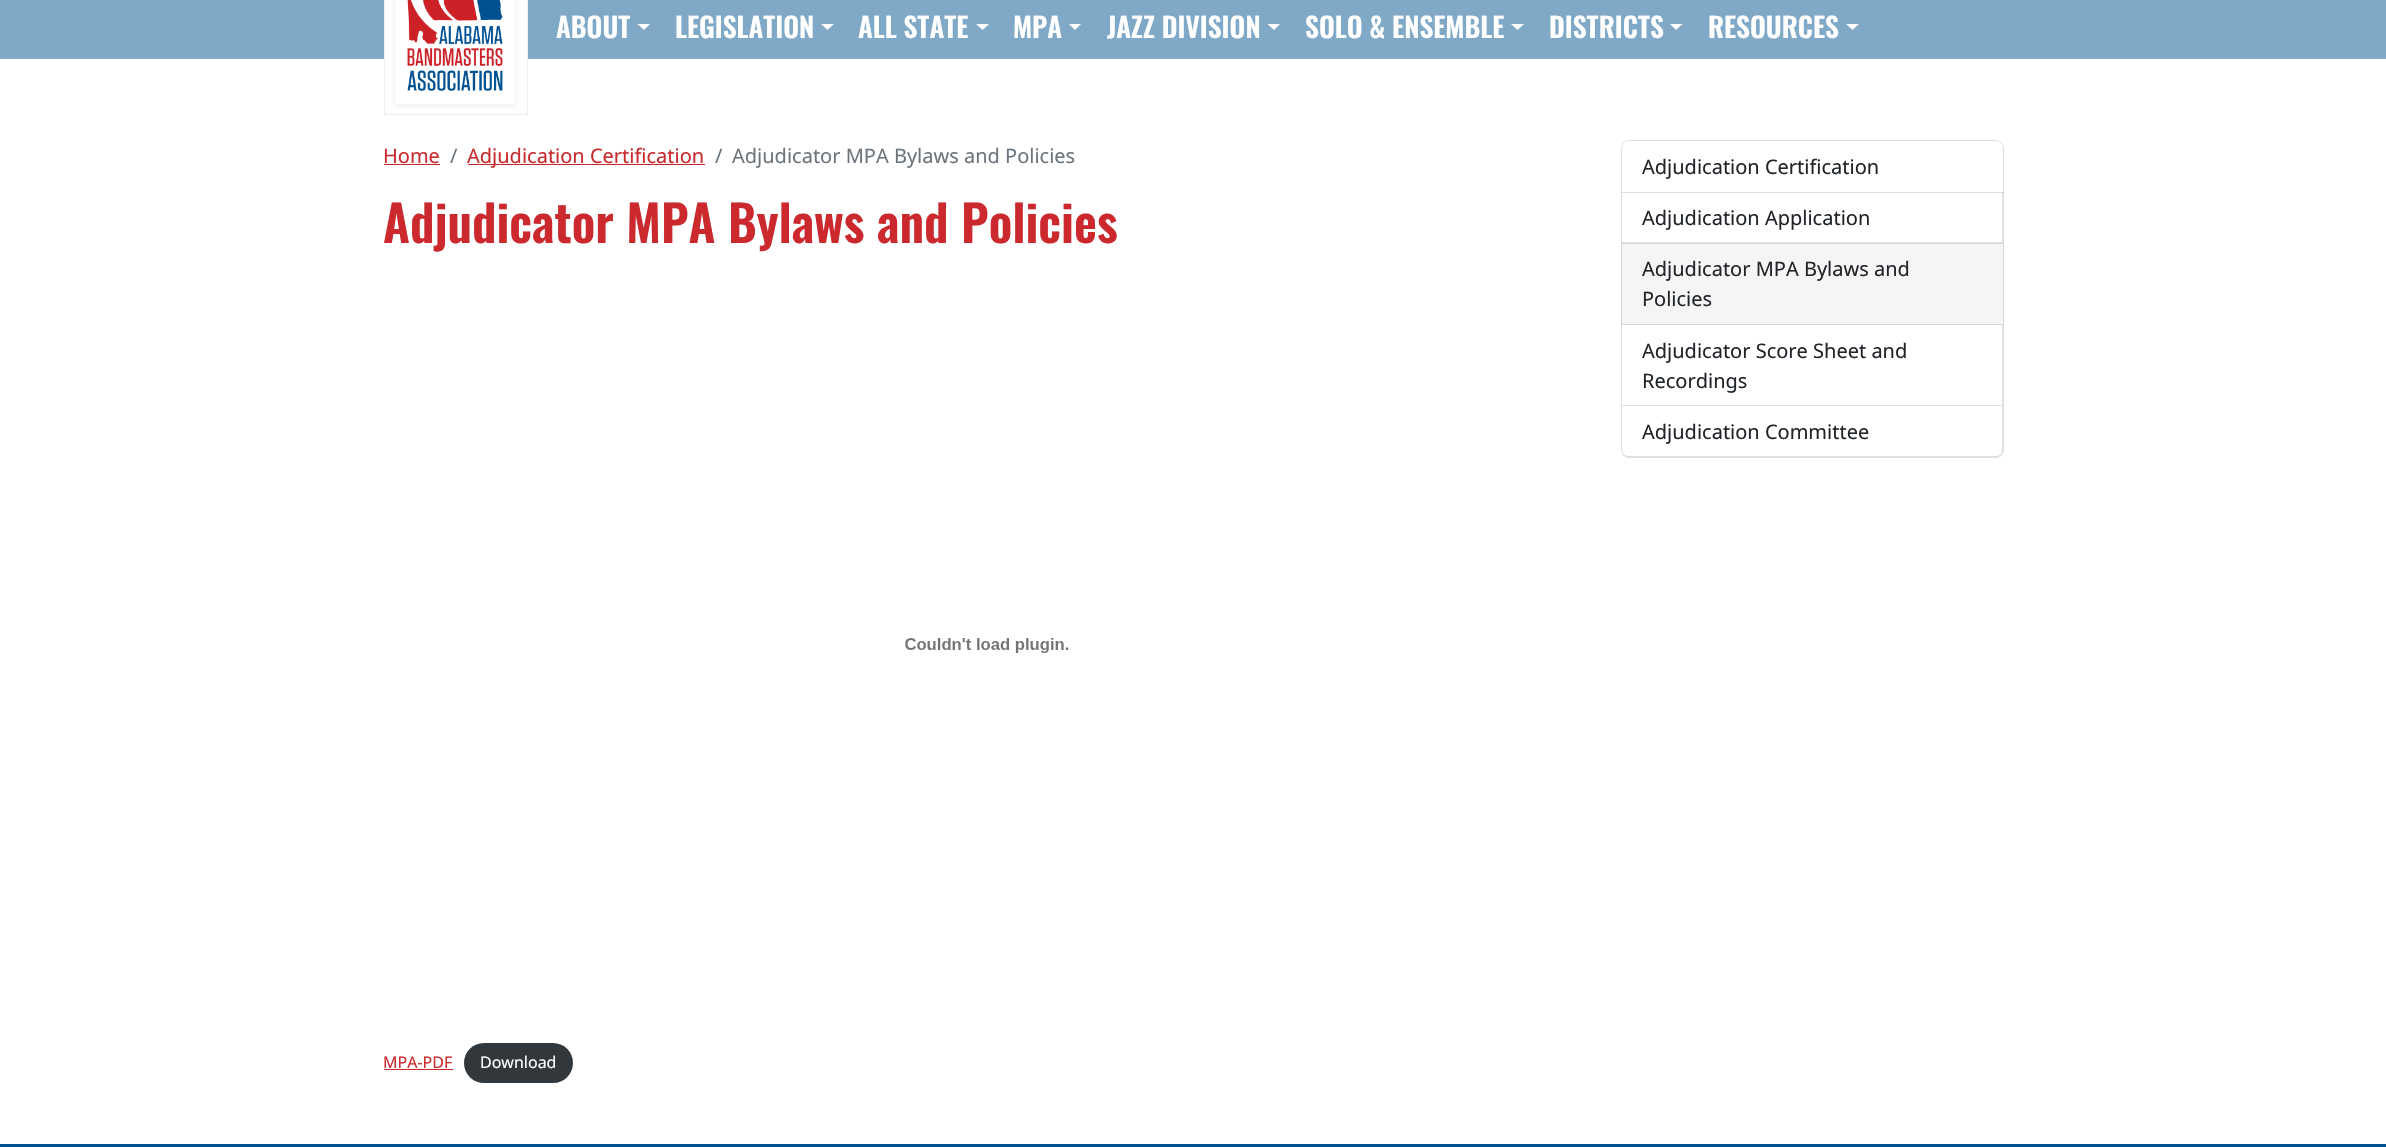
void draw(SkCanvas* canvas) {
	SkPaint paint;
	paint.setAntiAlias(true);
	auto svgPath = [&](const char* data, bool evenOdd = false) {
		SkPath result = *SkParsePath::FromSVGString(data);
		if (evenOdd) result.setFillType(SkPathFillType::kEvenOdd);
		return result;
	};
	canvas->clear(0xffffffff);
	paint.setColor(0xff7fa9c6);
	canvas->drawRect(SkRect::MakeXYWH(0, 0, 2386, 59), paint);
	paint.setColor(0xffffffff);
	canvas->drawRect(SkRect::MakeXYWH(385, 0, 142, 59), paint);
	paint.setStroke(true);
	paint.setStrokeWidth(1);
	paint.setColor(0xffeeeeee);
	canvas->drawRect(SkRect::MakeXYWH(384.5, -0.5, 143, 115), paint);
	canvas->save();
	canvas->clipPath(svgPath("M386 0H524V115H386ZM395-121H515V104H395Z", true), true);
	paint.setStroke(false);
	paint.setColor(0x12000000);
	paint.setMaskFilter(SkMaskFilter::MakeBlur(kNormal_SkBlurStyle, 2.5));
	canvas->drawRect(SkRect::MakeXYWH(395, -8, 120, 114), paint);
	paint.setMaskFilter(nullptr);
	canvas->restore();
	canvas->drawImageRect(SkImages::DeferredFromEncodedData(SkData::MakeFromFileName("img1.png")), SkRect::MakeXYWH(407, 0, 96, 91), SkSamplingOptions());
	SkFont f1(fontMgr->matchFamilyStyle("Oswald", SkFontStyle(600, SkFontStyle::kNormal_Width, SkFontStyle::kUpright_Slant)), 27.5);
	f1.setSubpixel(true);
	paint.setColor(0xffffffff);
	canvas->drawString("ABOUT", 556, 38, f1, paint);
	canvas->drawPath(svgPath("M637.5 24H650L644 30Z"), paint);
	canvas->drawString("LEGISLATION", 675, 38, f1, paint);
	canvas->drawPath(svgPath("M821 24H834L827.5 30Z"), paint);
	canvas->drawString("ALL STATE", 858, 38, f1, paint);
	canvas->drawPath(svgPath("M976 24H989L982.5 30Z"), paint);
	canvas->drawString("MPA", 1013, 38, f1, paint);
	canvas->drawPath(svgPath("M1069 24H1081L1075 30Z"), paint);
	canvas->drawString("JAZZ DIVISION", 1107, 38, f1, paint);
	canvas->drawPath(svgPath("M1267.5 24H1280L1274 30Z"), paint);
	canvas->drawString("SOLO & ENSEMBLE", 1305, 38, f1, paint);
	canvas->drawPath(svgPath("M1511 24H1524L1517.5 30Z"), paint);
	canvas->drawString("DISTRICTS", 1549, 38, f1, paint);
	canvas->drawPath(svgPath("M1670 24H1682.5L1676 30Z"), paint);
	canvas->drawString("RESOURCES", 1708, 38, f1, paint);
	canvas->drawPath(svgPath("M1846 24H1859L1852.5 30Z"), paint);
	SkFont f2(fontMgr->matchFamilyStyle("Noto Sans", SkFontStyle::Normal()), 20);
	f2.setSubpixel(true);
	paint.setColor(0xffcb292d);
	canvas->drawString("Home", 383, 163, f2, paint);
	canvas->drawRect(SkRect::MakeXYWH(384, 164, 56, 1), paint);
	paint.setColor(0xff6c757d);
	canvas->drawString("/", 450, 163, f2, paint);
	paint.setColor(0xffcb292d);
	canvas->drawRect(SkRect::MakeXYWH(468, 164, 237, 1), paint);
	canvas->drawString("Adjudication Certification", 467, 163, f2, paint);
	paint.setColor(0xff6c757d);
	canvas->drawString("/", 715, 163, f2, paint);
	canvas->drawString("Adjudicator MPA Bylaws and Policies", 732, 163, f2, paint);
	SkFont f3(fontMgr->matchFamilyStyle("Oswald", SkFontStyle(600, SkFontStyle::kNormal_Width, SkFontStyle::kUpright_Slant)), 50);
	f3.setSubpixel(true);
	paint.setColor(0xffcb292d);
	canvas->drawString("Adjudicator MPA Bylaws and Policies", 383, 243, f3, paint);
	canvas->drawImageRect(SkImages::DeferredFromEncodedData(SkData::MakeFromFileName("img2.png")), SkRect::MakeXYWH(905, 638, 164, 15), SkSamplingOptions());
	SkFont f4(fontMgr->matchFamilyStyle("Noto Sans", SkFontStyle::Normal()), 16);
	f4.setSubpixel(true);
	canvas->drawString("MPA-PDF", 383, 1068, f4, paint);
	canvas->drawRect(SkRect::MakeXYWH(384, 1069, 69, 1), paint);
	paint.setColor(0xff32373c);
	canvas->drawRoundRect(SkRect::MakeXYWH(464, 1043, 109, 40), 20, 20, paint);
	paint.setColor(0xffffffff);
	canvas->drawString("Download", 480, 1068, f4, paint);
	paint.setStroke(true);
	paint.setColor(0xffdfdfdf);
	canvas->drawPath(svgPath("M1629 140.5H1996C2000 140.5 2003.5 144 2003.5 148V192.5H1621.5V148C1621.5 144 1625 140.5 1629 140.5Z"), paint);
	paint.setStroke(false);
	paint.setColor(0xff212529);
	canvas->drawString("Adjudication Certification", 1642, 174, f2, paint);
	paint.setColor(0x1f000000);
	canvas->drawPath(svgPath("M2004 192V244L2002 242V192Z"), paint);
	canvas->drawPath(svgPath("M2004 244H1621L1622 242H2002Z"), paint);
	canvas->drawPath(svgPath("M1621 244V192H1622V242Z"), paint);
	paint.setColor(0xff212529);
	canvas->drawString("Adjudication Application", 1642, 225, f2, paint);
	paint.setColor(0xfff5f5f5);
	canvas->drawRect(SkRect::MakeXYWH(1621.5, 243.5, 382, 81), paint);
	paint.setStroke(true);
	paint.setColor(0xffd6d6d6);
	canvas->drawRect(SkRect::MakeXYWH(1621.5, 243.5, 382, 81), paint);
	paint.setStroke(false);
	paint.setColor(0xff212529);
	canvas->drawString("Adjudicator MPA Bylaws and", 1642, 276, f2, paint);
	canvas->drawString("Policies", 1642, 306, f2, paint);
	paint.setColor(0xffdfdfdf);
	canvas->drawPath(svgPath("M2004 325V406L2002 405V325Z"), paint);
	paint.setColor(0x1f000000);
	canvas->drawPath(svgPath("M2004 406H1621L1622 405H2002Z"), paint);
	canvas->drawPath(svgPath("M1621 406V325H1622V405Z"), paint);
	paint.setColor(0xff212529);
	canvas->drawString("Adjudicator Score Sheet and", 1642, 358, f2, paint);
	canvas->drawString("Recordings", 1642, 388, f2, paint);
	paint.setColor(0xffdfdfdf);
	canvas->drawPath(svgPath("M1621 406H2004V450C2004 454 2000 458 1996 458H1629C1625 458 1621 454 1621 450ZM1622 406H2002V450C2002 453 2000 456 1996 456H1629C1625 456 1622 453 1622 450Z", true), paint);
	paint.setColor(0xff212529);
	canvas->drawString("Adjudication Committee", 1642, 439, f2, paint);
	paint.setColor(0xff015191);
	canvas->drawRect(SkRect::MakeXYWH(0, 1144, 2386, 3), paint);
}
